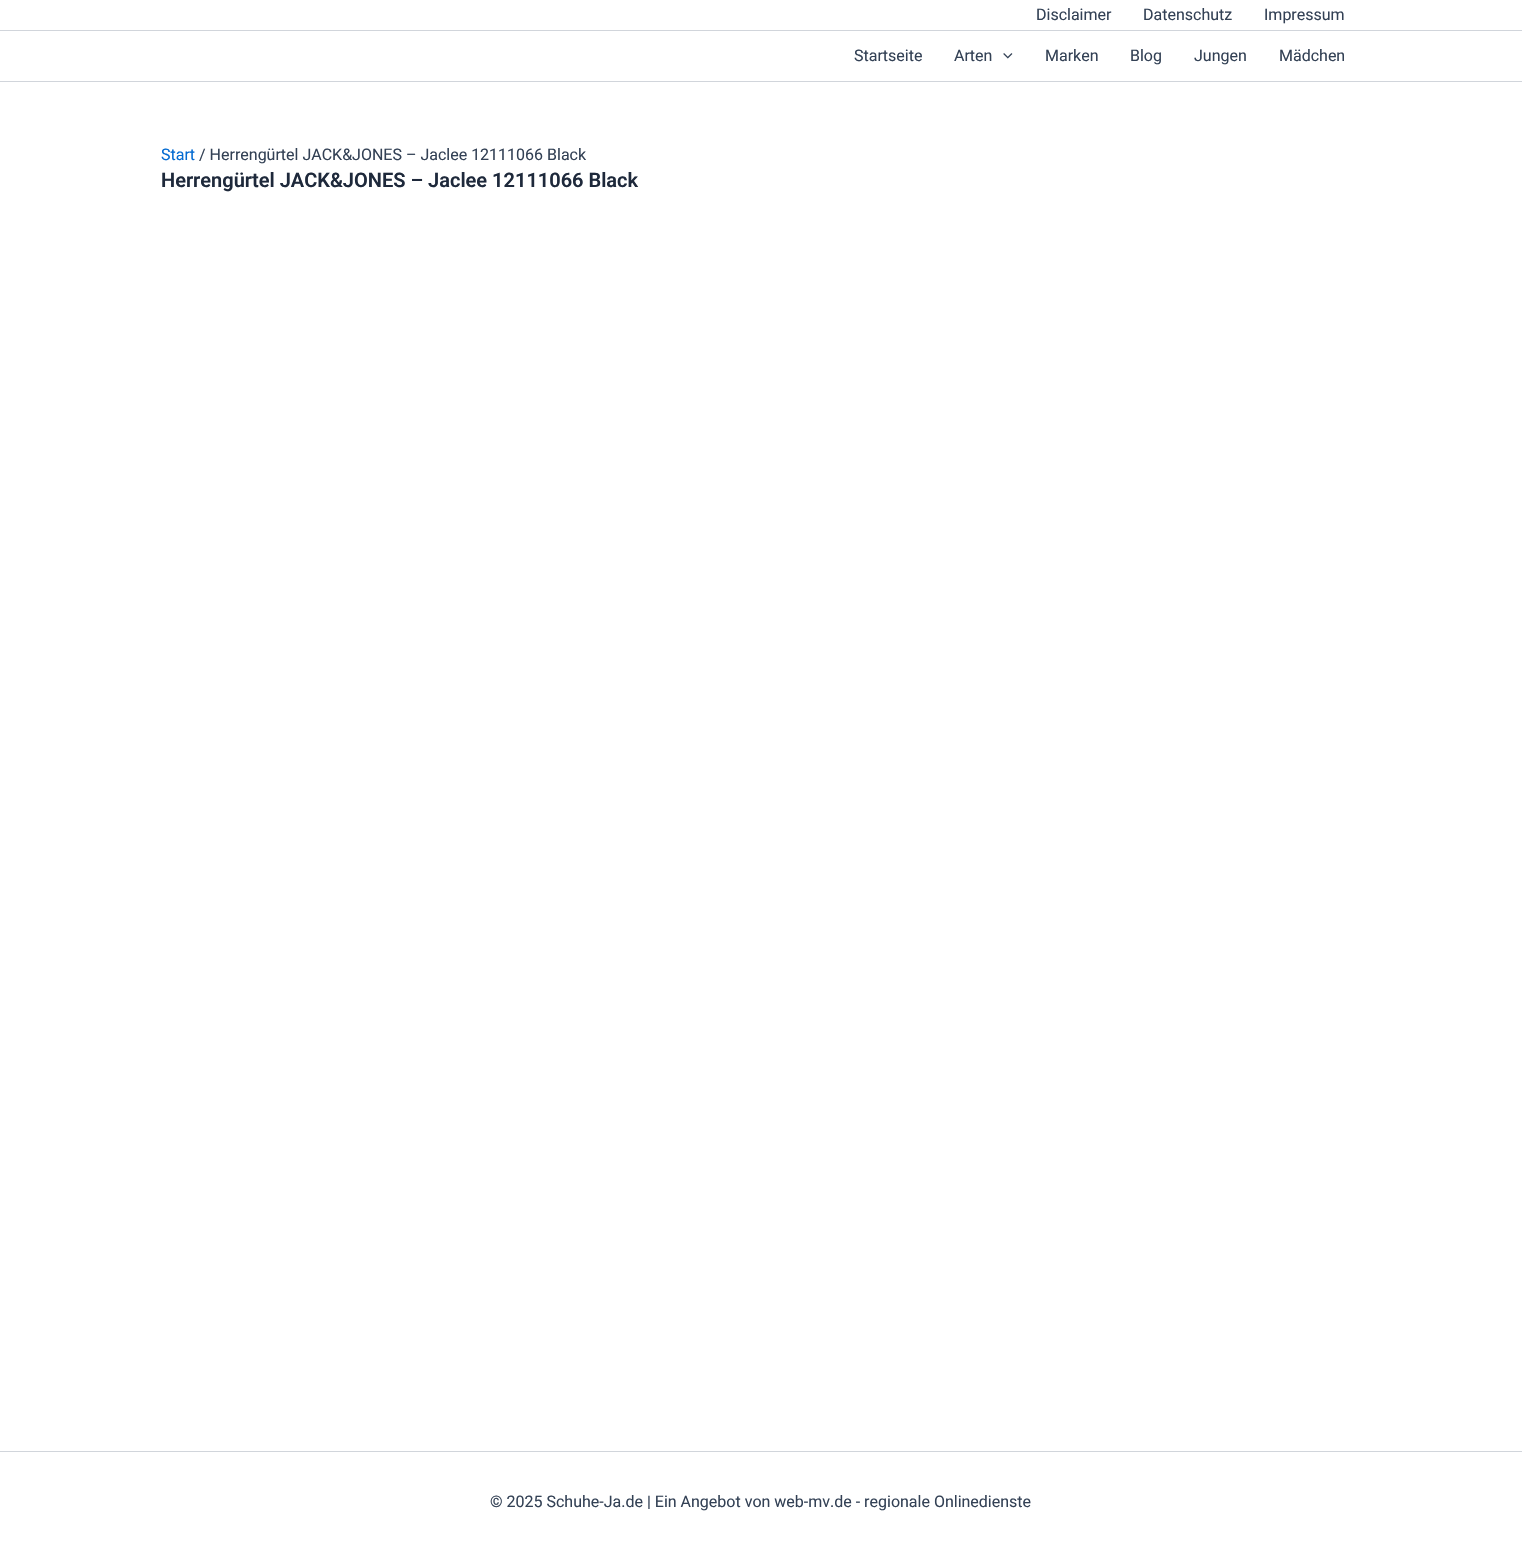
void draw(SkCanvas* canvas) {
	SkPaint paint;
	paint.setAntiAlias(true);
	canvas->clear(0xffffffff);
	paint.setColor(0xffd1d5db);
	canvas->drawRect(SkRect::MakeXYWH(0, 30, 1522, 1), paint);
	SkFont f1(fontMgr->matchFamilyStyle("Roboto", SkFontStyle::Normal()), 16);
	f1.setSubpixel(true);
	paint.setColor(0xff334155);
	canvas->drawString("Disclaimer", 1036, 20, f1, paint);
	canvas->drawString("Datenschutz", 1143, 20, f1, paint);
	canvas->drawString("Impressum", 1264, 20, f1, paint);
	paint.setColor(0xffd1d5db);
	canvas->drawRect(SkRect::MakeXYWH(0, 81, 1522, 1), paint);
	paint.setColor(0xff334155);
	canvas->drawString("Startseite", 854, 61, f1, paint);
	canvas->drawString("Arten", 954, 61, f1, paint);
	canvas->drawImageRect(SkImages::DeferredFromEncodedData(SkData::MakeFromFileName("img1.png")), SkRect::MakeXYWH(1003, 53, 10, 6), SkSamplingOptions());
	canvas->drawString("Marken", 1045, 61, f1, paint);
	canvas->drawString("Blog", 1130, 61, f1, paint);
	canvas->drawString("Jungen", 1194, 61, f1, paint);
	canvas->drawString("Mädchen", 1279, 61, f1, paint);
	paint.setColor(0xff046bd2);
	canvas->drawString("Start", 161, 160, f1, paint);
	paint.setColor(0xff334155);
	canvas->drawString("/ Herrengürtel JACK&JONES – Jaclee 12111066 Black", 199, 160, f1, paint);
	SkFont f2(fontMgr->matchFamilyStyle("Roboto", SkFontStyle(600, SkFontStyle::kNormal_Width, SkFontStyle::kUpright_Slant)), 20);
	f2.setSubpixel(true);
	paint.setColor(0xff1e293b);
	canvas->drawString("Herrengürtel JACK&JONES – Jaclee 12111066 Black", 161, 187, f2, paint);
	paint.setColor(0xffd1d5db);
	canvas->drawRect(SkRect::MakeXYWH(0, 1451, 1522, 1), paint);
	paint.setColor(0xff334155);
	canvas->drawString("© 2025 Schuhe-Ja.de | Ein Angebot von web-mv.de - regionale Onlinedienste", 490, 1507, f1, paint);
}
